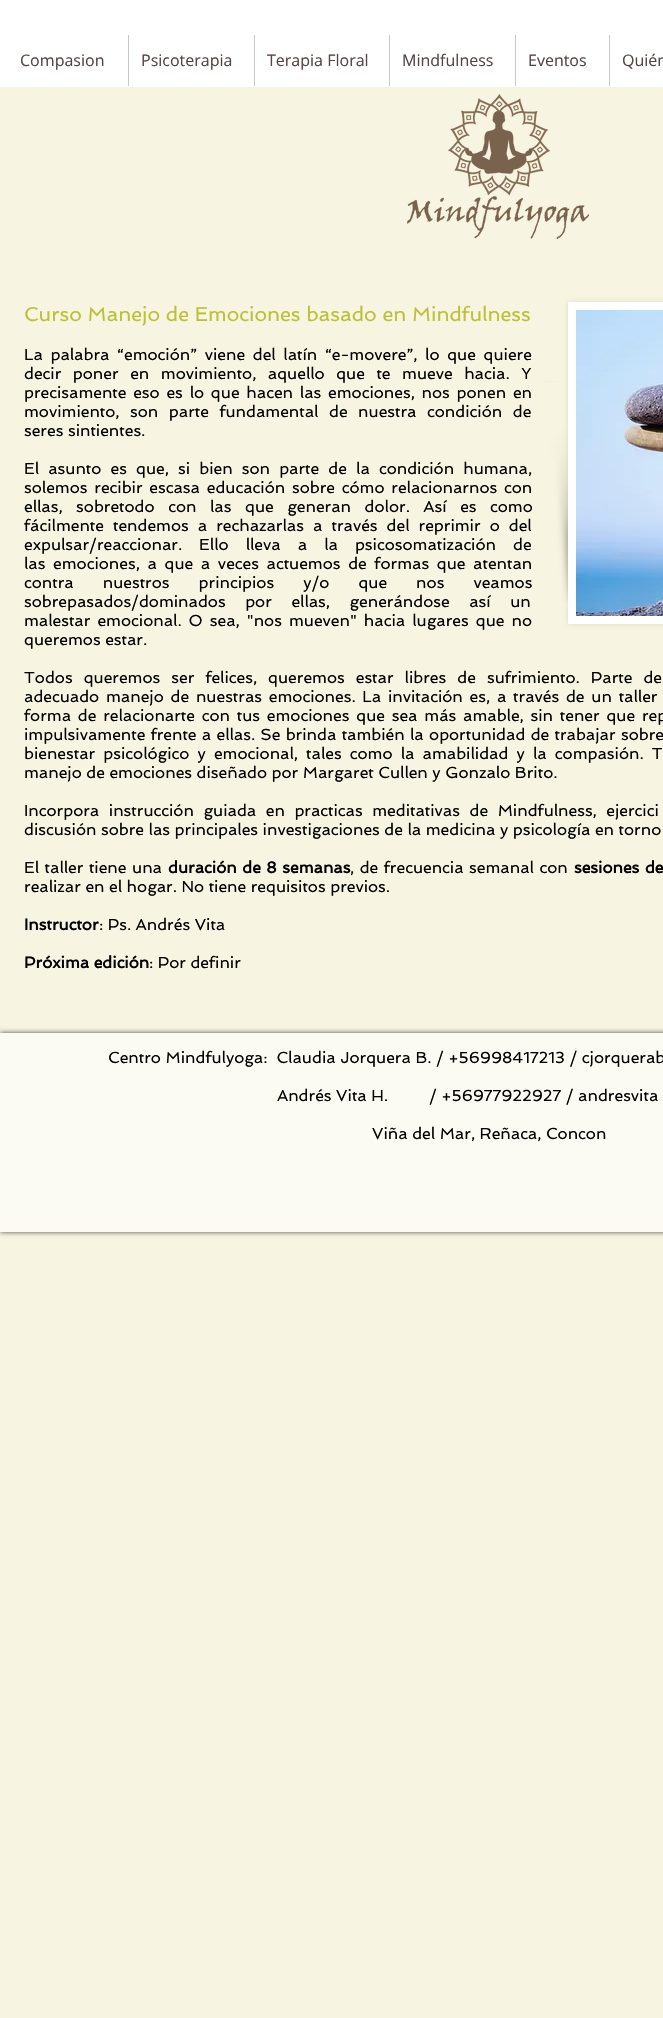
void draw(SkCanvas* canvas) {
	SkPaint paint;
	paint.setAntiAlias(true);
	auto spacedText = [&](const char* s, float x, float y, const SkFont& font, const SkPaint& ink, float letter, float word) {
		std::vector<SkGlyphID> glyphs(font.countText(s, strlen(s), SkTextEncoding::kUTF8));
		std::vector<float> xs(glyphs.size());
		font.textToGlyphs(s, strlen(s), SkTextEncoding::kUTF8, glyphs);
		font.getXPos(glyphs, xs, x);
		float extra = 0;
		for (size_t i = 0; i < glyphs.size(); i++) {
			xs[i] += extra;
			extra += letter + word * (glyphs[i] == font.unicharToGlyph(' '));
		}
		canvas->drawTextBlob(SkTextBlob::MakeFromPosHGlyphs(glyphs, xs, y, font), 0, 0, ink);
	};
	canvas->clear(0xfff7f5e1);
	paint.setColor(0xffffffff);
	canvas->drawRect(SkRect::MakeXYWH(0, 0, 663, 87), paint);
	SkFont f1(fontMgr->matchFamilyStyle("Open Sans", SkFontStyle::Normal()), 16);
	f1.setSubpixel(true);
	paint.setColor(0xff544442);
	canvas->drawString("Compasion", 20, 66, f1, paint);
	paint.setColor(0xffccc7c6);
	canvas->drawRect(SkRect::MakeXYWH(128, 35, 1, 51), paint);
	paint.setColor(0xff544442);
	canvas->drawString("Psicoterapia", 141, 66, f1, paint);
	paint.setColor(0xffccc7c6);
	canvas->drawRect(SkRect::MakeXYWH(254, 35, 1, 51), paint);
	paint.setColor(0xff544442);
	canvas->drawString("Terapia Floral", 267, 66, f1, paint);
	paint.setColor(0xffccc7c6);
	canvas->drawRect(SkRect::MakeXYWH(389, 35, 1, 51), paint);
	paint.setColor(0xff544442);
	canvas->drawString("Mindfulness", 402, 66, f1, paint);
	paint.setColor(0xffccc7c6);
	canvas->drawRect(SkRect::MakeXYWH(515, 35, 1, 51), paint);
	paint.setColor(0xff544442);
	canvas->drawString("Eventos", 528, 66, f1, paint);
	paint.setColor(0xffccc7c6);
	canvas->drawRect(SkRect::MakeXYWH(609, 35, 1, 51), paint);
	paint.setColor(0xff544442);
	canvas->drawString("Quién", 622, 66, f1, paint);
	canvas->drawImageRect(SkImages::DeferredFromEncodedData(SkData::MakeFromFileName("img1.png")), SkRect::MakeXYWH(407, 94, 182, 145), SkSamplingOptions());
	SkFont f2(fontMgr->matchFamilyStyle("Spinnaker", SkFontStyle::Normal()), 20);
	f2.setSubpixel(true);
	paint.setColor(0xffbdbf37);
	canvas->drawString("Curso Manejo de Emociones basado en Mindfulness", 24, 321, f2, paint);
	SkFont f3(fontMgr->matchFamilyStyle("Spinnaker", SkFontStyle::Normal()), 16);
	f3.setSubpixel(true);
	paint.setColor(0xff000000);
	spacedText("La palabra “emoción” viene del latín “e-movere”, lo que quiere", 24, 360, f3, paint, 0, 3.1);
	spacedText("decir poner en movimiento, aquello que te mueve hacia. Y", 24, 379, f3, paint, 0, 7);
	spacedText("precisamente eso es lo que hacen las emociones, nos ponen en", 24, 398, f3, paint, 0, 2.25);
	spacedText("movimiento, son parte fundamental de nuestra condición de", 24, 417, f3, paint, 0, 6);
	canvas->drawString("seres sintientes.", 24, 436, f3, paint);
	spacedText("El asunto es que, si bien son parte de la condición humana,", 24, 474, f3, paint, 0, 4.6);
	spacedText("solemos recibir escasa educación sobre cómo relacionarnos con", 24, 493, f3, paint, 0, 2.25);
	spacedText("ellas, sobretodo con las que generan dolor. Así es como", 24, 512, f3, paint, 0, 9);
	spacedText("fácilmente tendemos a rechazarlas a través del reprimir o del", 24, 531, f3, paint, 0, 4.5);
	spacedText("expulsar/reaccionar. Ello lleva a la psicosomatización de", 24, 550, f3, paint, 0, 12.5);
	spacedText("las emociones, a que a veces actuemos de formas que atentan", 24, 569, f3, paint, 0, 3.1);
	spacedText("contra nuestros principios y/o que nos veamos", 24, 588, f3, paint, 0, 24.5);
	spacedText("sobrepasados/dominados por ellas, generándose así un", 24, 607, f3, paint, 0, 15);
	spacedText("malestar emocional. O sea, \"nos mueven\" hacia lugares que no", 24, 626, f3, paint, 0, 2.5);
	canvas->drawString("queremos estar.", 24, 645, f3, paint);
	paint.setColor(0x1a000000);
	paint.setMaskFilter(SkMaskFilter::MakeBlur(kNormal_SkBlurStyle, 2.5));
	canvas->drawRect(SkRect::MakeXYWH(568, 302, 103, 322), paint);
	paint.setMaskFilter(nullptr);
	canvas->drawImageRect(SkImages::DeferredFromEncodedData(SkData::MakeFromFileName("img2.png")), SkRect::MakeXYWH(544, 381, 24, 220), SkSamplingOptions());
	paint.setColor(0xffffffff);
	canvas->drawRect(SkRect::MakeXYWH(568, 302, 95, 322), paint);
	canvas->drawImageRect(SkImages::DeferredFromEncodedData(SkData::MakeFromFileName("img3.png")), SkRect::MakeXYWH(576, 310, 87, 306), SkSamplingOptions());
	paint.setColor(0xff000000);
	spacedText("Todos queremos ser felices, queremos estar libres de sufrimiento. Parte de", 24, 683, f3, paint, 0, 6.5);
	spacedText("adecuado manejo de nuestras emociones. La invitación es, a través de un taller", 24, 702, f3, paint, 0, 2.25);
	spacedText("forma de relacionarte con tus emociones que sea más amable, sin tener que rep", 24, 721, f3, paint, 0, 2.25);
	spacedText("impulsivamente frente a ellas. Se brinda también la oportunidad de trabajar sobre", 24, 740, f3, paint, 0, 0.75);
	spacedText("bienestar psicológico y emocional, tales como la amabilidad y la compasión. T", 24, 759, f3, paint, 0, 3.6);
	canvas->drawString("manejo de emociones diseñado por Margaret Cullen y Gonzalo Brito.", 24, 778, f3, paint);
	spacedText("Incorpora instrucción guiada en practicas meditativas de Mindfulness, ejercici", 24, 816, f3, paint, 0, 5);
	canvas->drawString("discusión sobre las principales investigaciones de la medicina y psicología en torno", 24, 835, f3, paint);
	spacedText("El taller tiene una", 24, 873, f3, paint, 0, 1);
	SkFont f4(fontMgr->matchFamilyStyle("Spinnaker", SkFontStyle::Bold()), 16);
	f4.setSubpixel(true);
	spacedText("duración de 8 semanas", 168, 873, f4, paint, 0, 1);
	spacedText(", de frecuencia semanal con", 350, 873, f3, paint, 0, 1);
	spacedText("sesiones de", 574, 873, f4, paint, 0, 1);
	canvas->drawString("realizar en el hogar. No tiene requisitos previos.", 24, 892, f3, paint);
	canvas->drawString("Instructor", 24, 930, f4, paint);
	canvas->drawString(": Ps. Andrés Vita", 99, 930, f3, paint);
	canvas->drawString("Próxima edición", 24, 968, f4, paint);
	canvas->drawString(": Por definir", 149, 968, f3, paint);
	paint.setColor(0xb3000000);
	paint.setMaskFilter(SkMaskFilter::MakeBlur(kNormal_SkBlurStyle, 2.5));
	canvas->drawRect(SkRect::MakeXYWH(0, 1033, 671, 199), paint);
	paint.setMaskFilter(nullptr);
	paint.setColor(0xfffcfbf3);
	canvas->drawRect(SkRect::MakeXYWH(0, 1033, 663, 199), paint);
	paint.setColor(0xff000000);
	canvas->drawString("Centro Mindfulyoga:  Claudia Jorquera B. / +56998417213 / cjorquerab", 108, 1063, f3, paint);
	canvas->drawString("Andrés Vita H.         / +56977922927 / andresvita", 277, 1101, f3, paint);
	canvas->drawString("Viña del Mar, Reñaca, Concon", 372, 1139, f3, paint);
}
